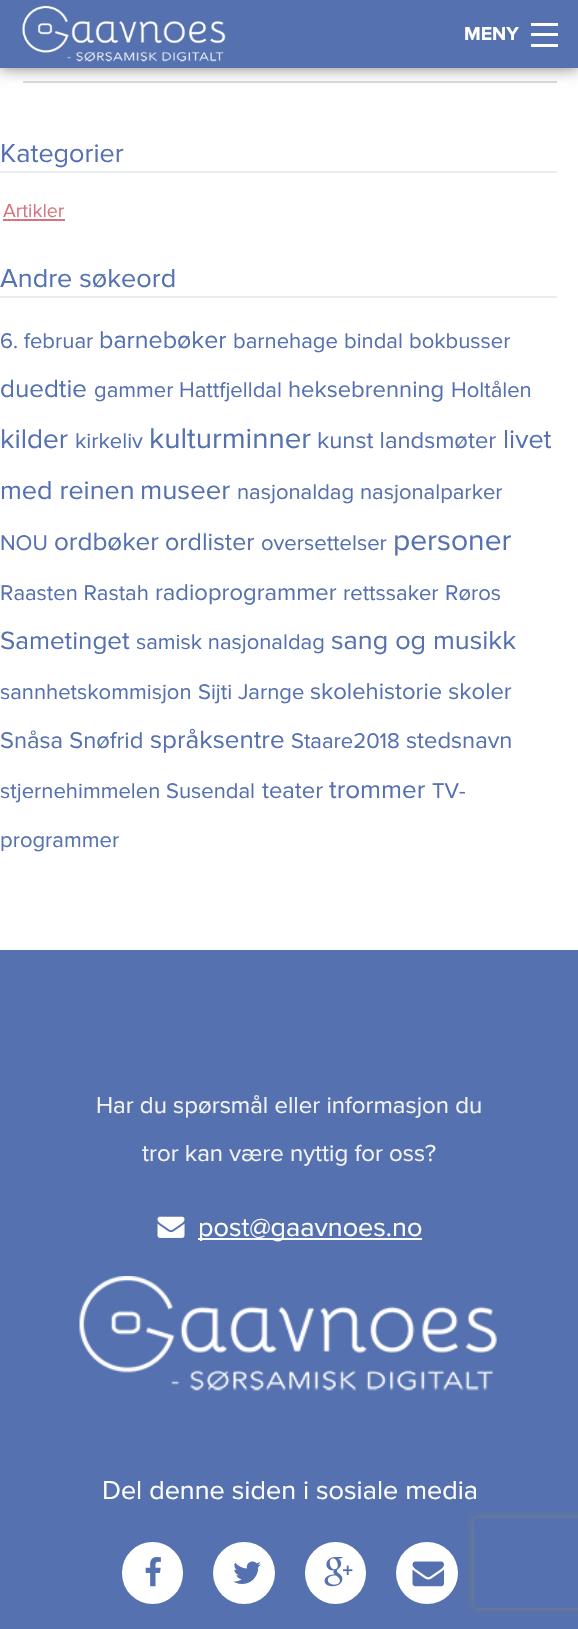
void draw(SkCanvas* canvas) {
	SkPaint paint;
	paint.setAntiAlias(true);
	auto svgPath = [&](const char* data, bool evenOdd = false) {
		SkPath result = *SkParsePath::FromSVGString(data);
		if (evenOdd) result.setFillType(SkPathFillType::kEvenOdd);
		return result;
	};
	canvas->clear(0xffffffff);
	paint.setColor(0xffdcdcdc);
	canvas->drawRect(SkRect::MakeXYWH(23, 81, 534, 2), paint);
	paint.setColor(0x82000000);
	paint.setMaskFilter(SkMaskFilter::MakeBlur(kNormal_SkBlurStyle, 7.5));
	canvas->drawRect(SkRect::MakeXYWH(0, 0, 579, 68), paint);
	paint.setMaskFilter(nullptr);
	paint.setColor(0xff5571af);
	canvas->drawRect(SkRect::MakeXYWH(0, 0, 578, 68), paint);
	canvas->drawImageRect(SkImages::DeferredFromEncodedData(SkData::MakeFromFileName("img1.png")), SkRect::MakeXYWH(22, 5, 204, 57), SkSamplingOptions());
	SkFont f1(fontMgr->matchFamilyStyle("Proxima Nova", SkFontStyle::Bold()), 19.5);
	f1.setSubpixel(true);
	paint.setColor(0xffffffff);
	canvas->drawString("MENY", 464, 40, f1, paint);
	canvas->drawRect(SkRect::MakeXYWH(531, 44, 27, 3), paint);
	canvas->drawRect(SkRect::MakeXYWH(531, 33, 27, 3), paint);
	canvas->drawRect(SkRect::MakeXYWH(531, 23, 27, 3), paint);
	paint.setColor(0xff5571af);
	canvas->drawRect(SkRect::MakeXYWH(0, 950, 578, 679), paint);
	canvas->save();
	canvas->clipPath(svgPath("M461 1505H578V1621H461ZM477 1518H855C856.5 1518 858 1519.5 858 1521V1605C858 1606.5 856.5 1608 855 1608H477C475.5 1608 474 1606.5 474 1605V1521C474 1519.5 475.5 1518 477 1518Z", true), true);
	paint.setColor(0xff808080);
	paint.setMaskFilter(SkMaskFilter::MakeBlur(kNormal_SkBlurStyle, 4));
	canvas->drawRoundRect(SkRect::MakeXYWH(474, 1518, 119, 90), 3, 3, paint);
	paint.setMaskFilter(nullptr);
	canvas->restore();
	paint.setColor(0xffe9edef);
	canvas->drawRect(SkRect::MakeXYWH(0, 171, 557, 2), paint);
	SkFont f2(fontMgr->matchFamilyStyle("Proxima Nova", SkFontStyle::Normal()), 27);
	f2.setSubpixel(true);
	paint.setColor(0xff5571af);
	canvas->drawString("Kategorier", 0, 162, f2, paint);
	SkFont f3(fontMgr->matchFamilyStyle("Proxima Nova", SkFontStyle::Normal()), 19.5);
	f3.setSubpixel(true);
	paint.setColor(0xffd4767e);
	canvas->drawString("Artikler", 3, 217, f3, paint);
	canvas->drawRect(SkRect::MakeXYWH(3, 219, 62, 2), paint);
	paint.setColor(0xffe9edef);
	canvas->drawRect(SkRect::MakeXYWH(0, 296, 557, 2), paint);
	paint.setColor(0xff5571af);
	canvas->drawString("Andre søkeord", 0, 287, f2, paint);
	SkFont f4(fontMgr->matchFamilyStyle("Proxima Nova", SkFontStyle::Normal()), 22);
	f4.setSubpixel(true);
	canvas->drawString("6. februar", 0, 348, f4, paint);
	SkFont f5(fontMgr->matchFamilyStyle("Proxima Nova", SkFontStyle::Normal()), 25);
	f5.setSubpixel(true);
	canvas->drawString("barnebøker", 99, 348, f5, paint);
	canvas->drawString("barnehage", 233, 348, f4, paint);
	canvas->drawString("bindal", 344, 348, f4, paint);
	canvas->drawString("bokbusser", 409, 348, f4, paint);
	SkFont f6(fontMgr->matchFamilyStyle("Proxima Nova", SkFontStyle::Normal()), 26);
	f6.setSubpixel(true);
	canvas->drawString("duedtie", 0, 397, f6, paint);
	canvas->drawString("gammer", 94, 397, f4, paint);
	canvas->drawString("Hattfjelldal", 179, 397, f4, paint);
	SkFont f7(fontMgr->matchFamilyStyle("Proxima Nova", SkFontStyle::Normal()), 23.75);
	f7.setSubpixel(true);
	canvas->drawString("heksebrenning", 288, 397, f7, paint);
	canvas->drawString("Holtålen", 451, 397, f4, paint);
	SkFont f8(fontMgr->matchFamilyStyle("Proxima Nova", SkFontStyle::Normal()), 28);
	f8.setSubpixel(true);
	canvas->drawString("kilder", 0, 448, f8, paint);
	canvas->drawString("kirkeliv", 75, 448, f4, paint);
	SkFont f9(fontMgr->matchFamilyStyle("Proxima Nova", SkFontStyle::Normal()), 29.5);
	f9.setSubpixel(true);
	canvas->drawString("kulturminner", 149, 448, f9, paint);
	canvas->drawString("kunst landsmøter", 317, 448, f7, paint);
	canvas->drawString("livet", 503, 448, f2, paint);
	canvas->drawString("med reinen", 0, 499, f2, paint);
	SkFont f10(fontMgr->matchFamilyStyle("Proxima Nova", SkFontStyle::Normal()), 27.5);
	f10.setSubpixel(true);
	canvas->drawString("museer", 140, 499, f10, paint);
	canvas->drawString("nasjonaldag", 237, 499, f4, paint);
	canvas->drawString("nasjonalparker", 360, 499, f4, paint);
	canvas->drawString("NOU", 0, 550, f4, paint);
	canvas->drawString("ordbøker", 54, 550, f6, paint);
	canvas->drawString("ordlister", 165, 550, f5, paint);
	canvas->drawString("oversettelser", 261, 550, f4, paint);
	SkFont f11(fontMgr->matchFamilyStyle("Proxima Nova", SkFontStyle::Normal()), 30);
	f11.setSubpixel(true);
	canvas->drawString("personer", 393, 550, f11, paint);
	canvas->drawString("Raasten Rastah", 0, 600, f4, paint);
	canvas->drawString("radioprogrammer", 155, 600, f7, paint);
	canvas->drawString("rettssaker", 343, 600, f4, paint);
	canvas->drawString("Røros", 445, 600, f4, paint);
	canvas->drawString("Sametinget", 0, 649, f6, paint);
	canvas->drawString("samisk nasjonaldag", 136, 649, f4, paint);
	canvas->drawString("sang og musikk", 331, 649, f2, paint);
	canvas->drawString("sannhetskommisjon", 0, 699, f4, paint);
	canvas->drawString("Sijti Jarnge", 198, 699, f4, paint);
	canvas->drawString("skolehistorie skoler", 310, 699, f7, paint);
	canvas->drawString("Snåsa Snøfrid", 0, 748, f7, paint);
	canvas->drawString("språksentre", 150, 748, f6, paint);
	canvas->drawString("Staare2018", 291, 748, f4, paint);
	canvas->drawString("stedsnavn", 406, 748, f7, paint);
	canvas->drawString("stjernehimmelen", 0, 798, f4, paint);
	canvas->drawString("Susendal", 166, 798, f4, paint);
	canvas->drawString("teater", 262, 798, f7, paint);
	canvas->drawString("trommer", 329, 798, f6, paint);
	canvas->drawString("TV-", 432, 798, f4, paint);
	canvas->drawString("programmer", 0, 847, f4, paint);
	SkFont f12(fontMgr->matchFamilyStyle("Proxima Nova", SkFontStyle::Normal()), 24);
	f12.setSubpixel(true);
	paint.setColor(0xfff3f3f3);
	canvas->drawString("Har du spørsmål eller informasjon du", 96, 1113, f12, paint);
	canvas->drawString("tror kan være nyttig for oss?", 142, 1161, f12, paint);
	canvas->drawImageRect(SkImages::DeferredFromEncodedData(SkData::MakeFromFileName("img2.png")), SkRect::MakeXYWH(157, 1216, 28, 22), SkSamplingOptions());
	paint.setColor(0xffffffff);
	canvas->drawRect(SkRect::MakeXYWH(198, 1238, 224, 2), paint);
	canvas->drawString("post@gaavnoes.no", 198, 1236, f2, paint);
	canvas->drawImageRect(SkImages::DeferredFromEncodedData(SkData::MakeFromFileName("img3.png")), SkRect::MakeXYWH(79, 1276, 418, 115), SkSamplingOptions());
	canvas->drawString("Del denne siden i sosiale media", 102, 1499, f2, paint);
	canvas->drawRoundRect(SkRect::MakeXYWH(122, 1542, 61, 62), 30.5, 30.5, paint);
	canvas->drawImageRect(SkImages::DeferredFromEncodedData(SkData::MakeFromFileName("img4.png")), SkRect::MakeXYWH(145, 1557, 16, 30), SkSamplingOptions());
	canvas->drawCircle(244, 1573, 31, paint);
	canvas->drawImageRect(SkImages::DeferredFromEncodedData(SkData::MakeFromFileName("img5.png")), SkRect::MakeXYWH(233, 1561, 28, 23), SkSamplingOptions());
	canvas->drawRoundRect(SkRect::MakeXYWH(305, 1542, 61, 62), 30.5, 30.5, paint);
	canvas->drawImageRect(SkImages::DeferredFromEncodedData(SkData::MakeFromFileName("img6.png")), SkRect::MakeXYWH(324, 1557, 29, 30), SkSamplingOptions());
	canvas->drawCircle(427, 1573, 31, paint);
	canvas->drawImageRect(SkImages::DeferredFromEncodedData(SkData::MakeFromFileName("img7.png")), SkRect::MakeXYWH(412, 1561, 32, 26), SkSamplingOptions());
}
